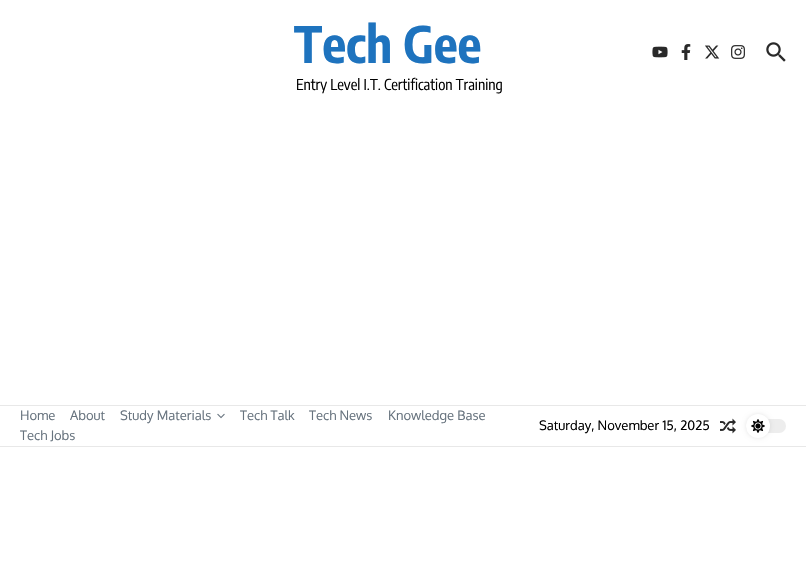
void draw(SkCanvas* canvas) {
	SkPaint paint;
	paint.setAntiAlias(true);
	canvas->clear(0xffffffff);
	paint.setColor(0xffe8e8e8);
	canvas->drawRect(SkRect::MakeXYWH(0, 405, 806, 1), paint);
	SkFont f1(fontMgr->matchFamilyStyle("Encode Sans Condensed", SkFontStyle::Bold()), 50);
	f1.setSubpixel(true);
	paint.setColor(0xff1e73be);
	canvas->drawString("Tech Gee", 294, 63, f1, paint);
	SkFont f2(fontMgr->matchFamilyStyle("Encode Sans Condensed", SkFontStyle::Normal()), 15);
	f2.setSubpixel(true);
	paint.setColor(0xff000000);
	canvas->drawString("Entry Level I.T. Certification Training", 296, 90, f2, paint);
	canvas->drawImageRect(SkImages::DeferredFromEncodedData(SkData::MakeFromFileName("img1.png")), SkRect::MakeXYWH(652, 46, 16, 12), SkSamplingOptions());
	canvas->drawImageRect(SkImages::DeferredFromEncodedData(SkData::MakeFromFileName("img2.png")), SkRect::MakeXYWH(681, 44, 10, 16), SkSamplingOptions());
	canvas->drawImageRect(SkImages::DeferredFromEncodedData(SkData::MakeFromFileName("img3.png")), SkRect::MakeXYWH(705, 45, 15, 14), SkSamplingOptions());
	canvas->drawImageRect(SkImages::DeferredFromEncodedData(SkData::MakeFromFileName("img4.png")), SkRect::MakeXYWH(731, 45, 14, 14), SkSamplingOptions());
	canvas->drawImageRect(SkImages::DeferredFromEncodedData(SkData::MakeFromFileName("img5.png")), SkRect::MakeXYWH(766, 42, 20, 20), SkSamplingOptions());
	paint.setColor(0xffe8e8e8);
	canvas->drawRect(SkRect::MakeXYWH(0, 446, 806, 1), paint);
	SkFont f3(fontMgr->matchFamilyStyle("Oxygen", SkFontStyle::Normal()), 13);
	f3.setSubpixel(true);
	paint.setColor(0xff67737e);
	canvas->drawString("Home", 20, 420, f3, paint);
	canvas->drawString("About", 70, 420, f3, paint);
	canvas->drawString("Study Materials", 120, 420, f3, paint);
	canvas->drawImageRect(SkImages::DeferredFromEncodedData(SkData::MakeFromFileName("img6.png")), SkRect::MakeXYWH(217, 413, 8, 6), SkSamplingOptions());
	canvas->drawString("Tech Talk", 240, 420, f3, paint);
	canvas->drawString("Tech News", 309, 420, f3, paint);
	canvas->drawString("Knowledge Base", 388, 420, f3, paint);
	canvas->drawString("Tech Jobs", 20, 440, f3, paint);
	paint.setColor(0xff000000);
	canvas->drawString("Saturday, November 15, 2025", 539, 430, f3, paint);
	canvas->drawImageRect(SkImages::DeferredFromEncodedData(SkData::MakeFromFileName("img7.png")), SkRect::MakeXYWH(720, 418, 16, 16), SkSamplingOptions());
	paint.setColor(0xffededed);
	canvas->drawRoundRect(SkRect::MakeXYWH(746, 419, 40, 14), 7, 7, paint);
	paint.setColor(0x1a000000);
	paint.setMaskFilter(SkMaskFilter::MakeBlur(kNormal_SkBlurStyle, 2));
	canvas->drawRoundRect(SkRect::MakeXYWH(746, 414, 24, 24), 12, 12, paint);
	paint.setMaskFilter(nullptr);
	paint.setColor(0xffffffff);
	canvas->drawCircle(758, 426, 12, paint);
	canvas->drawImageRect(SkImages::DeferredFromEncodedData(SkData::MakeFromFileName("img8.png")), SkRect::MakeXYWH(751, 419, 14, 14), SkSamplingOptions());
}
